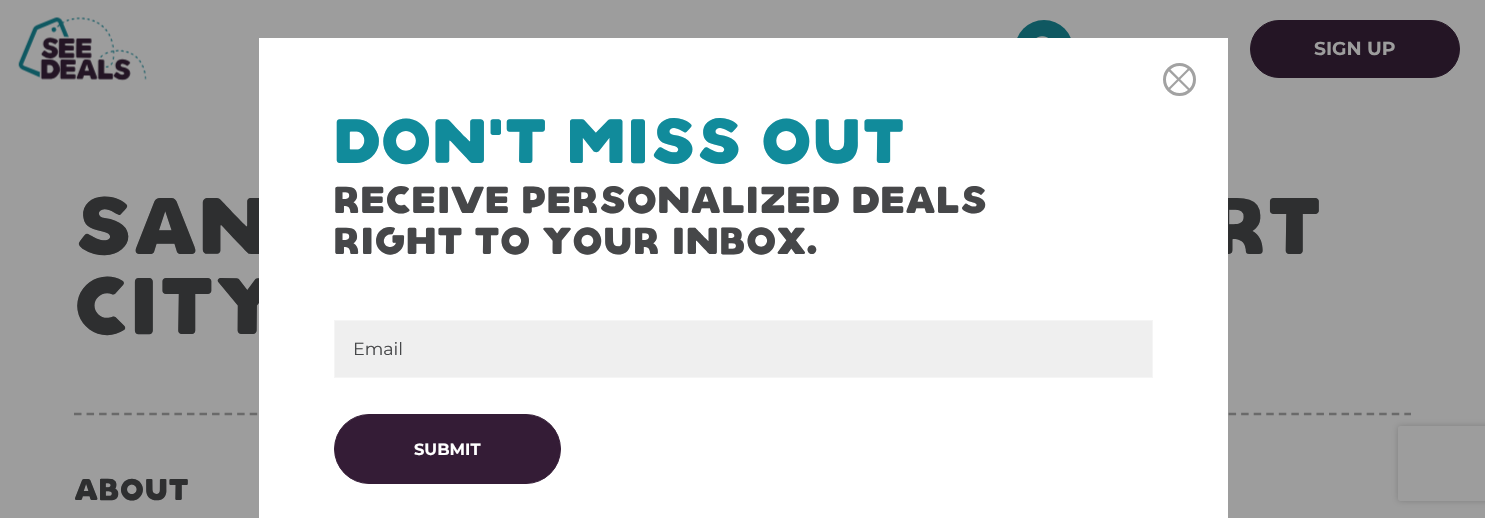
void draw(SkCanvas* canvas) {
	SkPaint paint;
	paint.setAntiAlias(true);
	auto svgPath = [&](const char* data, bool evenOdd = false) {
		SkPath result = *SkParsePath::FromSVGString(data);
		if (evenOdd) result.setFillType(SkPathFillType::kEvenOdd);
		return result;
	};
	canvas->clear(0xff9d9d9d);
	canvas->drawImageRect(SkImages::DeferredFromEncodedData(SkData::MakeFromFileName("img1.png")), SkRect::MakeXYWH(18, 17, 129, 64), SkSamplingOptions());
	paint.setColor(0xff0f5861);
	canvas->drawCircle(1044, 49, 29, paint);
	canvas->drawImageRect(SkImages::DeferredFromEncodedData(SkData::MakeFromFileName("img2.png")), SkRect::MakeXYWH(1036, 36, 12, 2), SkSamplingOptions());
	paint.setColor(0xff241525);
	canvas->drawRoundRect(SkRect::MakeXYWH(1250.5, 20.5, 209, 57), 28.5, 28.5, paint);
	paint.setStroke(true);
	paint.setStrokeWidth(1);
	canvas->drawRoundRect(SkRect::MakeXYWH(1250.5, 20.5, 209, 57), 28.5, 28.5, paint);
	SkFont f1(fontMgr->matchFamilyStyle("Montserrat", SkFontStyle::Bold()), 18.75);
	f1.setSubpixel(true);
	paint.setStroke(false);
	paint.setColor(0xff9d9d9d);
	canvas->drawString("SIGN UP", 1314, 55, f1, paint);
	SkFont f2(fontMgr->matchFamilyStyle("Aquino", SkFontStyle::Normal()), 80);
	f2.setSubpixel(true);
	paint.setColor(0xff2e2f30);
	canvas->drawString("SAN", 74, 254, f2, paint);
	canvas->drawString("RT", 1209, 254, f2, paint);
	canvas->drawString("CITY", 74, 334, f2, paint);
	paint.setStroke(true);
	paint.setStrokeWidth(2.5);
	paint.setColor(0xff6a6a6a);
	paint.setPathEffect(SkDashPathEffect::Make({{7.5f, 5.05f}}, 0));
	canvas->drawPath(svgPath("M74 414H1411"), paint);
	paint.setPathEffect(nullptr);
	SkFont f3(fontMgr->matchFamilyStyle("Aquino", SkFontStyle::Normal()), 30);
	f3.setSubpixel(true);
	paint.setStroke(false);
	paint.setColor(0xff2e2f30);
	canvas->drawString("ABOUT", 74, 500, f3, paint);
	paint.setColor(0xffffffff);
	canvas->drawRect(SkRect::MakeXYWH(259, 38, 969, 480), paint);
	paint.setStroke(true);
	paint.setStrokeWidth(3);
	paint.setColor(0xffa2a2a2);
	canvas->drawCircle(1179.5, 79.5, 15, paint);
	paint.setStroke(false);
	canvas->drawPath(svgPath("M1170 69L1190 89L1188.5 90.5L1168 70.5Z"), paint);
	canvas->drawPath(svgPath("M1169.5 90L1168 88.5L1188.5 68L1190 69.5Z"), paint);
	SkFont f4(fontMgr->matchFamilyStyle("Aquino", SkFontStyle::Normal()), 62.5);
	f4.setSubpixel(true);
	paint.setColor(0xff118b9b);
	canvas->drawString("DON'T MISS OUT", 333, 163, f4, paint);
	SkFont f5(fontMgr->matchFamilyStyle("Aquino", SkFontStyle::Normal()), 37.5);
	f5.setSubpixel(true);
	paint.setColor(0xff464749);
	canvas->drawString("RECEIVE PERSONALIZED DEALS", 333, 213, f5, paint);
	canvas->drawString("RIGHT TO YOUR INBOX.", 333, 254, f5, paint);
	paint.setColor(0xffefefef);
	canvas->drawRect(SkRect::MakeXYWH(334.5, 320.5, 818, 57), paint);
	paint.setStroke(true);
	paint.setStrokeWidth(1);
	paint.setColor(0xfff5f5f5);
	canvas->drawRect(SkRect::MakeXYWH(334.5, 320.5, 818, 57), paint);
	SkFont f6(fontMgr->matchFamilyStyle("Montserrat", SkFontStyle::Normal()), 17.5);
	f6.setSubpixel(true);
	paint.setStroke(false);
	paint.setColor(0xff464749);
	canvas->drawString("Email", 353, 355, f6, paint);
	paint.setColor(0xff341c36);
	canvas->drawRoundRect(SkRect::MakeXYWH(334.5, 414.5, 226, 69), 34.5, 34.5, paint);
	paint.setStroke(true);
	canvas->drawRoundRect(SkRect::MakeXYWH(334.5, 414.5, 226, 69), 34.5, 34.5, paint);
	SkFont f7(fontMgr->matchFamilyStyle("Montserrat", SkFontStyle::Bold()), 16.25);
	f7.setSubpixel(true);
	paint.setStroke(false);
	paint.setColor(0xffffffff);
	canvas->drawString("SUBMIT", 414, 455, f7, paint);
	canvas->save();
	canvas->clipPath(svgPath("M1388 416H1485V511H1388ZM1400.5 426H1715.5C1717 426 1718 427 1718 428.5V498.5C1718 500 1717 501 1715.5 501H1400.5C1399 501 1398 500 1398 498.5V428.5C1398 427 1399 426 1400.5 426Z", true), true);
	paint.setColor(0xff808080);
	paint.setMaskFilter(SkMaskFilter::MakeBlur(kNormal_SkBlurStyle, 3));
	canvas->drawRoundRect(SkRect::MakeXYWH(1398, 426, 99, 75), 2.5, 2.5, paint);
	paint.setMaskFilter(nullptr);
	canvas->restore();
}
